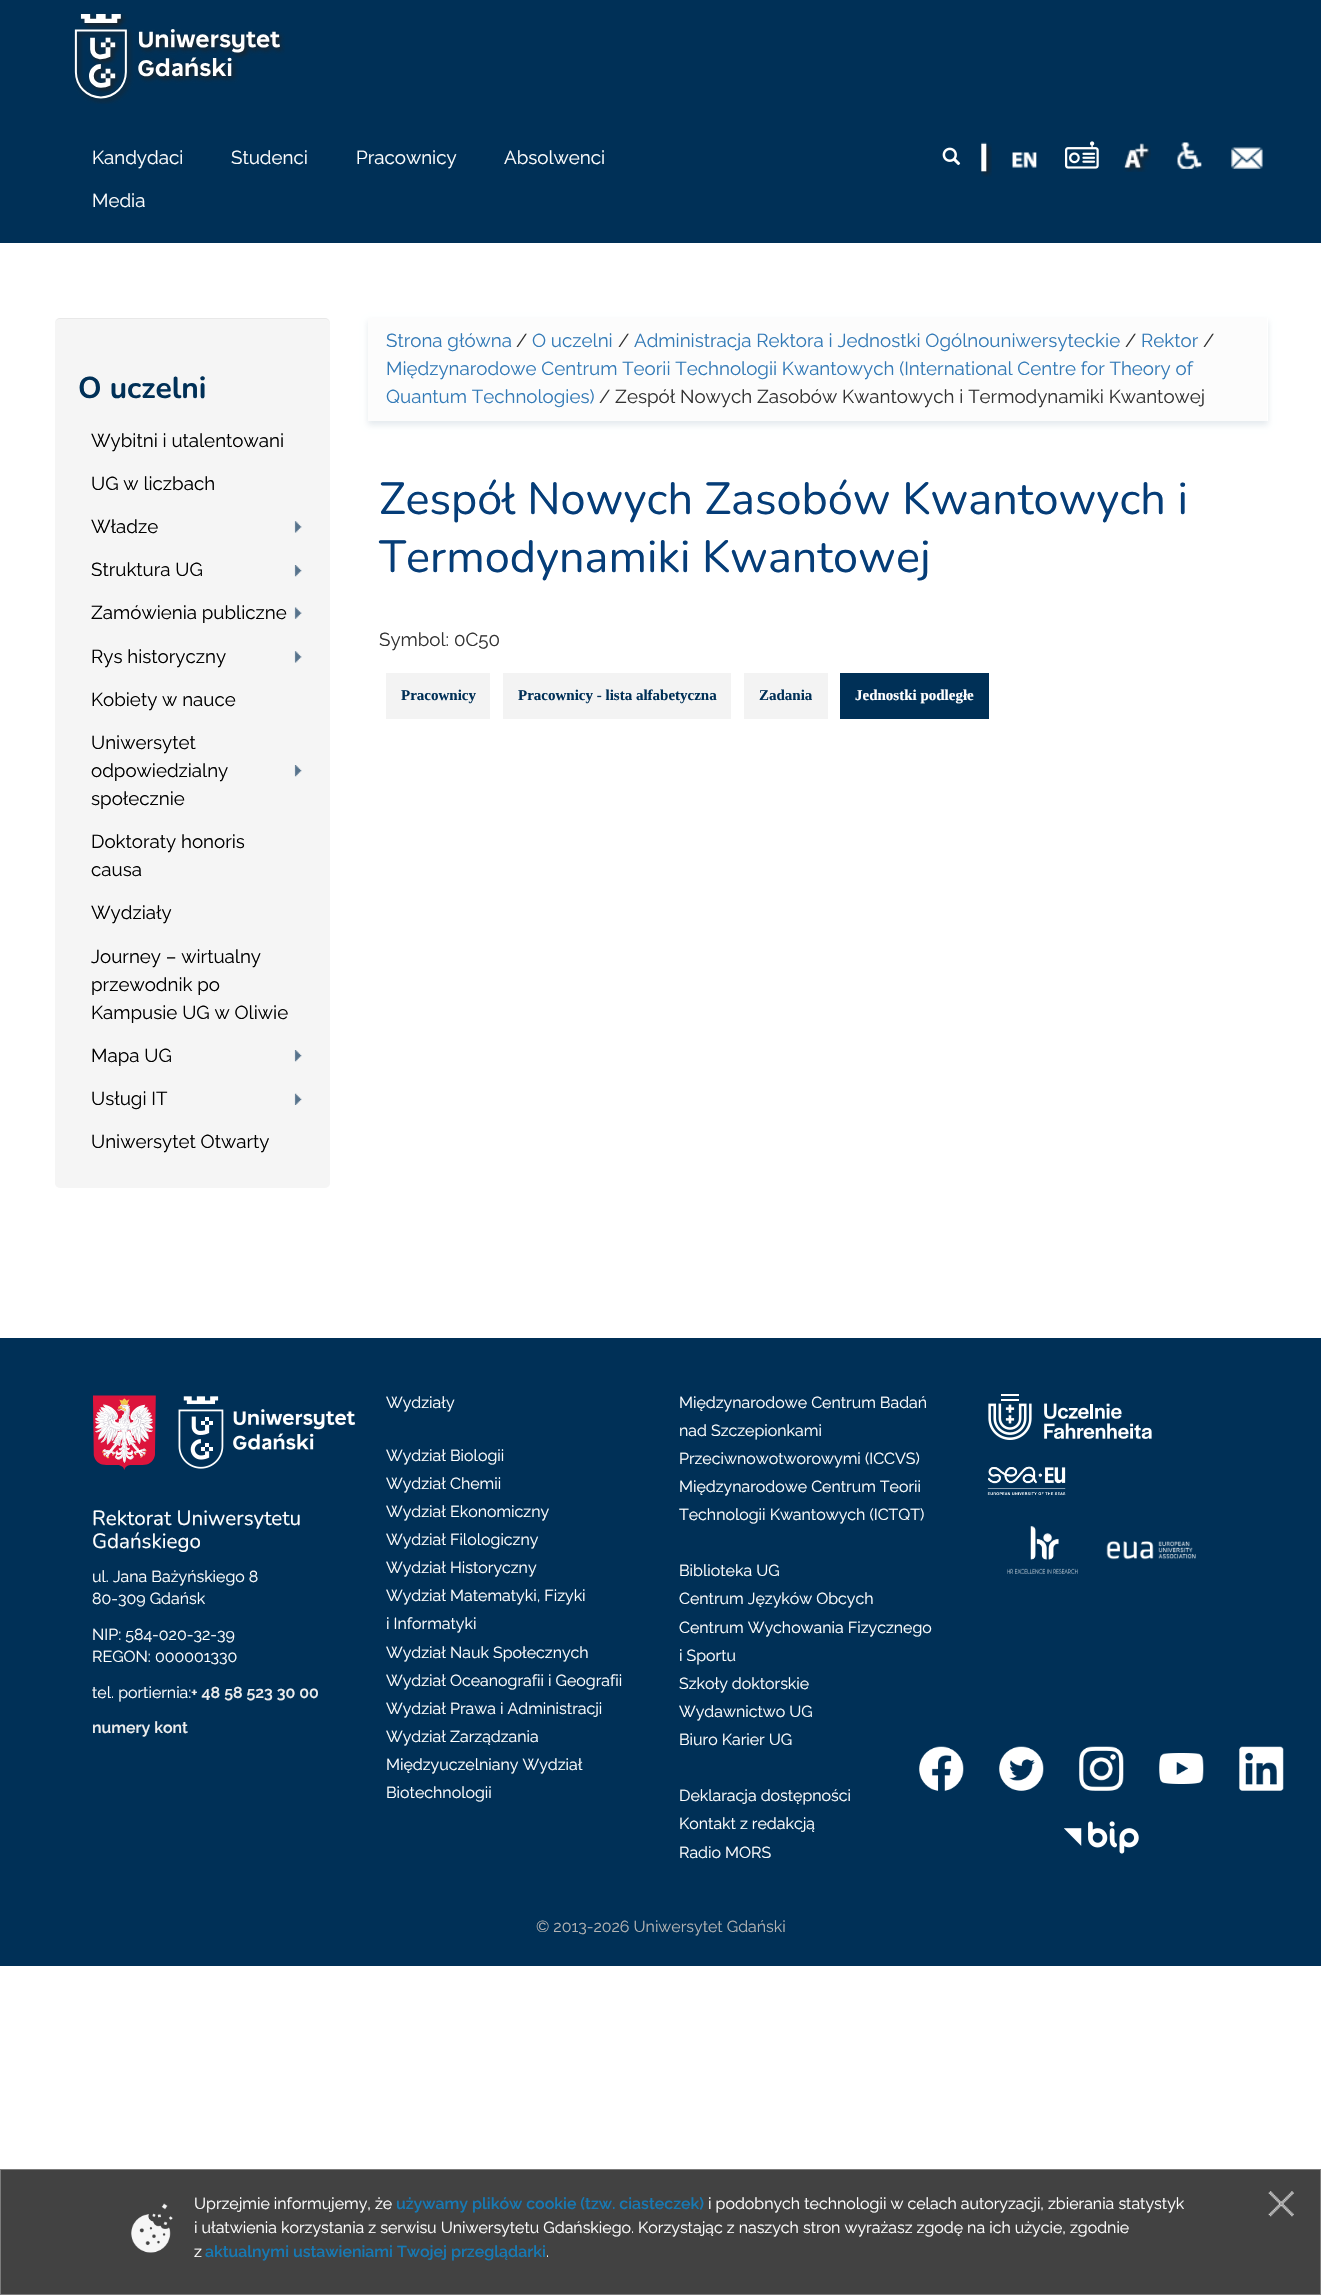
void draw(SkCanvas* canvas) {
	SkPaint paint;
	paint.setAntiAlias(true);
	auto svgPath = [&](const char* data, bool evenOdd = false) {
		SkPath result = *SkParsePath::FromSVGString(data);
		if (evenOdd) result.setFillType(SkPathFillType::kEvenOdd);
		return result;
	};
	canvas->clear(0xffffffff);
	paint.setColor(0xff003057);
	canvas->drawRect(SkRect::MakeXYWH(0, 0, 1321, 243), paint);
	canvas->drawImageRect(SkImages::DeferredFromEncodedData(SkData::MakeFromFileName("img1.png")), SkRect::MakeXYWH(74, 13, 211, 91), SkSamplingOptions());
	SkFont f1(fontMgr->matchFamilyStyle("Raleway", SkFontStyle::Normal()), 18.75);
	f1.setSubpixel(true);
	paint.setColor(0xffffffff);
	canvas->drawString("Kandydaci", 92, 164, f1, paint);
	canvas->drawString("Studenci", 231, 164, f1, paint);
	canvas->drawString("Pracownicy", 356, 164, f1, paint);
	canvas->drawString("Absolwenci", 504, 164, f1, paint);
	canvas->drawString("Media", 92, 207, f1, paint);
	canvas->drawImageRect(SkImages::DeferredFromEncodedData(SkData::MakeFromFileName("img2.png")), SkRect::MakeXYWH(942, 147, 19, 19), SkSamplingOptions());
	canvas->drawImageRect(SkImages::DeferredFromEncodedData(SkData::MakeFromFileName("img3.png")), SkRect::MakeXYWH(980, 142, 12, 35), SkSamplingOptions());
	canvas->drawImageRect(SkImages::DeferredFromEncodedData(SkData::MakeFromFileName("img4.png")), SkRect::MakeXYWH(1012, 152, 25, 16), SkSamplingOptions());
	canvas->drawImageRect(SkImages::DeferredFromEncodedData(SkData::MakeFromFileName("img5.png")), SkRect::MakeXYWH(1065, 141, 34, 28), SkSamplingOptions());
	canvas->drawImageRect(SkImages::DeferredFromEncodedData(SkData::MakeFromFileName("img6.png")), SkRect::MakeXYWH(1123, 143, 28, 29), SkSamplingOptions());
	canvas->drawImageRect(SkImages::DeferredFromEncodedData(SkData::MakeFromFileName("img7.png")), SkRect::MakeXYWH(1177, 142, 25, 27), SkSamplingOptions());
	canvas->drawImageRect(SkImages::DeferredFromEncodedData(SkData::MakeFromFileName("img8.png")), SkRect::MakeXYWH(1231, 147, 32, 22), SkSamplingOptions());
	paint.setColor(0xfff5f5f5);
	canvas->drawRoundRect(SkRect::MakeXYWH(55, 318, 275, 870), 5, 5, paint);
	paint.setColor(0x0d000000);
	canvas->drawPath(svgPath("M60 319H325C328 319 330 321 330 324C330 321 328 318 325 318H60C57 318 55 321 55 324C55 321 57 319 60 319Z"), paint);
	SkFont f2(fontMgr->matchFamilyStyle("Nunito", SkFontStyle::Bold()), 30);
	f2.setSubpixel(true);
	paint.setColor(0xff003057);
	canvas->drawString("O uczelni", 78, 398, f2, paint);
	paint.setColor(0xff000000);
	canvas->drawString("Wybitni i utalentowani", 91, 447, f1, paint);
	canvas->drawString("UG w liczbach", 91, 490, f1, paint);
	canvas->drawImageRect(SkImages::DeferredFromEncodedData(SkData::MakeFromFileName("img9.png")), SkRect::MakeXYWH(294, 521, 8, 12), SkSamplingOptions());
	canvas->drawString("Władze", 91, 533, f1, paint);
	canvas->drawImageRect(SkImages::DeferredFromEncodedData(SkData::MakeFromFileName("img10.png")), SkRect::MakeXYWH(294, 565, 8, 12), SkSamplingOptions());
	canvas->drawString("Struktura UG", 91, 576, f1, paint);
	canvas->drawImageRect(SkImages::DeferredFromEncodedData(SkData::MakeFromFileName("img11.png")), SkRect::MakeXYWH(294, 607, 8, 12), SkSamplingOptions());
	canvas->drawString("Zamówienia publiczne", 91, 619, f1, paint);
	canvas->drawImageRect(SkImages::DeferredFromEncodedData(SkData::MakeFromFileName("img9.png")), SkRect::MakeXYWH(294, 651, 8, 12), SkSamplingOptions());
	canvas->drawString("Rys historyczny", 91, 663, f1, paint);
	canvas->drawString("Kobiety w nauce", 91, 706, f1, paint);
	canvas->drawImageRect(SkImages::DeferredFromEncodedData(SkData::MakeFromFileName("img10.png")), SkRect::MakeXYWH(294, 765, 8, 12), SkSamplingOptions());
	canvas->drawString("Uniwersytet", 91, 749, f1, paint);
	canvas->drawString("odpowiedzialny", 91, 777, f1, paint);
	canvas->drawString("społecznie", 91, 805, f1, paint);
	canvas->drawString("Doktoraty honoris", 91, 848, f1, paint);
	canvas->drawString("causa", 91, 876, f1, paint);
	canvas->drawString("Wydziały", 91, 919, f1, paint);
	canvas->drawString("Journey – wirtualny", 91, 963, f1, paint);
	canvas->drawString("przewodnik po", 91, 991, f1, paint);
	canvas->drawString("Kampusie UG w Oliwie", 91, 1019, f1, paint);
	canvas->drawImageRect(SkImages::DeferredFromEncodedData(SkData::MakeFromFileName("img10.png")), SkRect::MakeXYWH(294, 1050, 8, 12), SkSamplingOptions());
	canvas->drawString("Mapa UG", 91, 1062, f1, paint);
	canvas->drawImageRect(SkImages::DeferredFromEncodedData(SkData::MakeFromFileName("img12.png")), SkRect::MakeXYWH(294, 1093, 8, 12), SkSamplingOptions());
	canvas->drawString("Usługi IT", 91, 1105, f1, paint);
	canvas->drawString("Uniwersytet Otwarty", 91, 1148, f1, paint);
	canvas->save();
	canvas->clipPath(svgPath("M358 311H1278V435H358ZM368 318H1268V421H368Z", true), true);
	paint.setColor(0x1a002f57);
	paint.setMaskFilter(SkMaskFilter::MakeBlur(kNormal_SkBlurStyle, 3));
	canvas->drawRect(SkRect::MakeXYWH(368, 321, 900, 104), paint);
	paint.setMaskFilter(nullptr);
	canvas->restore();
	paint.setColor(0x73f9f9f9);
	canvas->drawRect(SkRect::MakeXYWH(368, 318, 899, 103), paint);
	paint.setColor(0xff337ab7);
	canvas->drawString("Strona główna", 386, 347, f1, paint);
	paint.setColor(0xff333333);
	canvas->drawString("/", 516, 347, f1, paint);
	paint.setColor(0xff337ab7);
	canvas->drawString("O uczelni", 532, 347, f1, paint);
	paint.setColor(0xff333333);
	canvas->drawString("/", 618, 347, f1, paint);
	paint.setColor(0xff337ab7);
	canvas->drawString("Administracja Rektora i Jednostki Ogólnouniwersyteckie", 634, 347, f1, paint);
	paint.setColor(0xff333333);
	canvas->drawString("/", 1125, 347, f1, paint);
	paint.setColor(0xff337ab7);
	canvas->drawString("Rektor", 1141, 347, f1, paint);
	paint.setColor(0xff333333);
	canvas->drawString("/", 1203, 347, f1, paint);
	paint.setColor(0xff337ab7);
	canvas->drawString("Międzynarodowe Centrum Teorii Technologii Kwantowych (International Centre for Theory of", 386, 375, f1, paint);
	canvas->drawString("Quantum Technologies)", 386, 403, f1, paint);
	paint.setColor(0xff333333);
	canvas->drawString("/ Zespół Nowych Zasobów Kwantowych i Termodynamiki Kwantowej", 599, 403, f1, paint);
	SkFont f3(fontMgr->matchFamilyStyle("Nunito", SkFontStyle::Normal()), 45);
	f3.setSubpixel(true);
	paint.setColor(0xff053d78);
	canvas->drawString("Zespół Nowych Zasobów Kwantowych i", 379, 514, f3, paint);
	canvas->drawString("Termodynamiki Kwantowej", 379, 572, f3, paint);
	paint.setColor(0xff333333);
	canvas->drawString("Symbol: 0C50", 379, 646, f1, paint);
	paint.setColor(0xfff3f3f3);
	canvas->drawRect(SkRect::MakeXYWH(386, 673, 104, 46), paint);
	SkFont f4(fontMgr->matchFamilyStyle("Liberation Serif", SkFontStyle::Bold()), 15);
	f4.setSubpixel(true);
	paint.setColor(0xff003057);
	canvas->drawString("Pracownicy", 401, 700, f4, paint);
	paint.setColor(0xfff3f3f3);
	canvas->drawRect(SkRect::MakeXYWH(503, 673, 228, 46), paint);
	paint.setColor(0xff003057);
	canvas->drawString("Pracownicy - lista alfabetyczna", 518, 700, f4, paint);
	paint.setColor(0xfff3f3f3);
	canvas->drawRect(SkRect::MakeXYWH(744, 673, 84, 46), paint);
	paint.setColor(0xff003057);
	canvas->drawString("Zadania", 759, 700, f4, paint);
	canvas->drawRect(SkRect::MakeXYWH(840, 673, 149, 46), paint);
	paint.setColor(0xffffffff);
	canvas->drawString("Jednostki podległe", 855, 700, f4, paint);
	paint.setColor(0xff003057);
	canvas->drawRect(SkRect::MakeXYWH(0, 1338, 1321, 628), paint);
	canvas->drawImageRect(SkImages::DeferredFromEncodedData(SkData::MakeFromFileName("img13.png")), SkRect::MakeXYWH(93, 1395, 63, 75), SkSamplingOptions());
	canvas->drawImageRect(SkImages::DeferredFromEncodedData(SkData::MakeFromFileName("img14.png")), SkRect::MakeXYWH(178, 1396, 178, 73), SkSamplingOptions());
	SkFont f5(fontMgr->matchFamilyStyle("Nunito", SkFontStyle::Normal()), 20.6);
	f5.setSubpixel(true);
	paint.setColor(0xffffffff);
	canvas->drawString("Rektorat Uniwersytetu", 92, 1525, f5, paint);
	canvas->drawString("Gdańskiego", 92, 1548, f5, paint);
	SkFont f6(fontMgr->matchFamilyStyle("Raleway", SkFontStyle::Normal()), 15.95);
	f6.setSubpixel(true);
	canvas->drawString("ul. Jana Bażyńskiego 8", 92, 1582, f6, paint);
	canvas->drawString("80-309 Gdańsk", 92, 1604, f6, paint);
	canvas->drawString("NIP: 584-020-32-39", 92, 1640, f6, paint);
	canvas->drawString("REGON: 000001330", 92, 1662, f6, paint);
	canvas->drawString("tel. portiernia:", 92, 1698, f6, paint);
	SkFont f7(fontMgr->matchFamilyStyle("Raleway", SkFontStyle(600, SkFontStyle::kNormal_Width, SkFontStyle::kUpright_Slant)), 15.95);
	f7.setSubpixel(true);
	paint.setColor(0xffeeeeee);
	canvas->drawString("+ 48 58 523 30 00", 191, 1698, f7, paint);
	canvas->drawString("numery kont", 92, 1733, f7, paint);
	paint.setColor(0xffffffff);
	canvas->drawString("Wydziały", 386, 1408, f6, paint);
	canvas->drawString("Wydział Biologii", 386, 1461, f6, paint);
	canvas->drawString("Wydział Chemii", 386, 1489, f6, paint);
	canvas->drawString("Wydział Ekonomiczny", 386, 1517, f6, paint);
	canvas->drawString("Wydział Filologiczny", 386, 1545, f6, paint);
	canvas->drawString("Wydział Historyczny", 386, 1573, f6, paint);
	canvas->drawString("Wydział Matematyki, Fizyki", 386, 1601, f6, paint);
	canvas->drawString("i Informatyki", 386, 1629, f6, paint);
	canvas->drawString("Wydział Nauk Społecznych", 386, 1658, f6, paint);
	canvas->drawString("Wydział Oceanografii i Geografii", 386, 1686, f6, paint);
	canvas->drawString("Wydział Prawa i Administracji", 386, 1714, f6, paint);
	canvas->drawString("Wydział Zarządzania", 386, 1742, f6, paint);
	canvas->drawString("Międzyuczelniany Wydział", 386, 1770, f6, paint);
	canvas->drawString("Biotechnologii", 386, 1798, f6, paint);
	canvas->drawString("Międzynarodowe Centrum Badań", 679, 1408, f6, paint);
	canvas->drawString("nad Szczepionkami", 679, 1436, f6, paint);
	canvas->drawString("Przeciwnowotworowymi (ICCVS)", 679, 1464, f6, paint);
	canvas->drawString("Międzynarodowe Centrum Teorii", 679, 1492, f6, paint);
	canvas->drawString("Technologii Kwantowych (ICTQT)", 679, 1520, f6, paint);
	canvas->drawString("Biblioteka UG", 679, 1576, f6, paint);
	canvas->drawString("Centrum Języków Obcych", 679, 1604, f6, paint);
	canvas->drawString("Centrum Wychowania Fizycznego", 679, 1633, f6, paint);
	canvas->drawString("i Sportu", 679, 1661, f6, paint);
	canvas->drawString("Szkoły doktorskie", 679, 1689, f6, paint);
	canvas->drawString("Wydawnictwo UG", 679, 1717, f6, paint);
	canvas->drawString("Biuro Karier UG", 679, 1745, f6, paint);
	canvas->drawString("Deklaracja dostępności", 679, 1801, f6, paint);
	canvas->drawString("Kontakt z redakcją", 679, 1829, f6, paint);
	canvas->drawString("Radio MORS", 679, 1858, f6, paint);
	canvas->drawImageRect(SkImages::DeferredFromEncodedData(SkData::MakeFromFileName("img15.png")), SkRect::MakeXYWH(988, 1394, 164, 46), SkSamplingOptions());
	canvas->drawImageRect(SkImages::DeferredFromEncodedData(SkData::MakeFromFileName("img16.png")), SkRect::MakeXYWH(987, 1466, 79, 29), SkSamplingOptions());
	canvas->drawImageRect(SkImages::DeferredFromEncodedData(SkData::MakeFromFileName("img17.png")), SkRect::MakeXYWH(1007, 1526, 71, 48), SkSamplingOptions());
	canvas->drawImageRect(SkImages::DeferredFromEncodedData(SkData::MakeFromFileName("img18.png")), SkRect::MakeXYWH(1106, 1541, 90, 19), SkSamplingOptions());
	canvas->drawImageRect(SkImages::DeferredFromEncodedData(SkData::MakeFromFileName("img19.png")), SkRect::MakeXYWH(919, 1746, 45, 45), SkSamplingOptions());
	canvas->drawImageRect(SkImages::DeferredFromEncodedData(SkData::MakeFromFileName("img20.png")), SkRect::MakeXYWH(999, 1746, 45, 45), SkSamplingOptions());
	canvas->drawImageRect(SkImages::DeferredFromEncodedData(SkData::MakeFromFileName("img21.png")), SkRect::MakeXYWH(1079, 1746, 45, 45), SkSamplingOptions());
	canvas->drawImageRect(SkImages::DeferredFromEncodedData(SkData::MakeFromFileName("img22.png")), SkRect::MakeXYWH(1159, 1753, 45, 31), SkSamplingOptions());
	canvas->drawImageRect(SkImages::DeferredFromEncodedData(SkData::MakeFromFileName("img23.png")), SkRect::MakeXYWH(1239, 1746, 45, 45), SkSamplingOptions());
	canvas->drawImageRect(SkImages::DeferredFromEncodedData(SkData::MakeFromFileName("img24.png")), SkRect::MakeXYWH(1064, 1821, 75, 33), SkSamplingOptions());
	paint.setColor(0xffb3b3b3);
	canvas->drawString("© 2013-2026 Uniwersytet Gdański", 536, 1932, f6, paint);
	paint.setColor(0xff424242);
	canvas->drawRect(SkRect::MakeXYWH(0.5, 2169.5, 1320, 125), paint);
	paint.setStroke(true);
	paint.setStrokeWidth(1);
	paint.setColor(0xff7c7c7c);
	canvas->drawRect(SkRect::MakeXYWH(0.5, 2169.5, 1320, 125), paint);
	canvas->drawImageRect(SkImages::DeferredFromEncodedData(SkData::MakeFromFileName("img25.png")), SkRect::MakeXYWH(131, 2203, 42, 50), SkSamplingOptions());
	paint.setStroke(false);
	paint.setColor(0xffffffff);
	canvas->drawString("Uprzejmie informujemy, że", 194, 2209, f6, paint);
	paint.setColor(0xff1679b4);
	canvas->drawString("używamy plików cookie (tzw. ciasteczek)", 396, 2209, f7, paint);
	paint.setColor(0xffffffff);
	canvas->drawString("i podobnych technologii w celach autoryzacji, zbierania statystyk", 708, 2209, f6, paint);
	canvas->drawString("i ułatwienia korzystania z serwisu Uniwersytetu Gdańskiego. Korzystając z naszych stron wyrażasz zgodę na ich użycie, zgodnie", 194, 2233, f6, paint);
	canvas->drawString("z", 194, 2257, f6, paint);
	paint.setColor(0xff1679b4);
	canvas->drawString("aktualnymi ustawieniami Twojej przeglądarki", 205, 2257, f7, paint);
	paint.setColor(0xffffffff);
	canvas->drawString(".", 546, 2257, f6, paint);
	canvas->drawImageRect(SkImages::DeferredFromEncodedData(SkData::MakeFromFileName("img26.png")), SkRect::MakeXYWH(1268, 2191, 26, 26), SkSamplingOptions());
}
